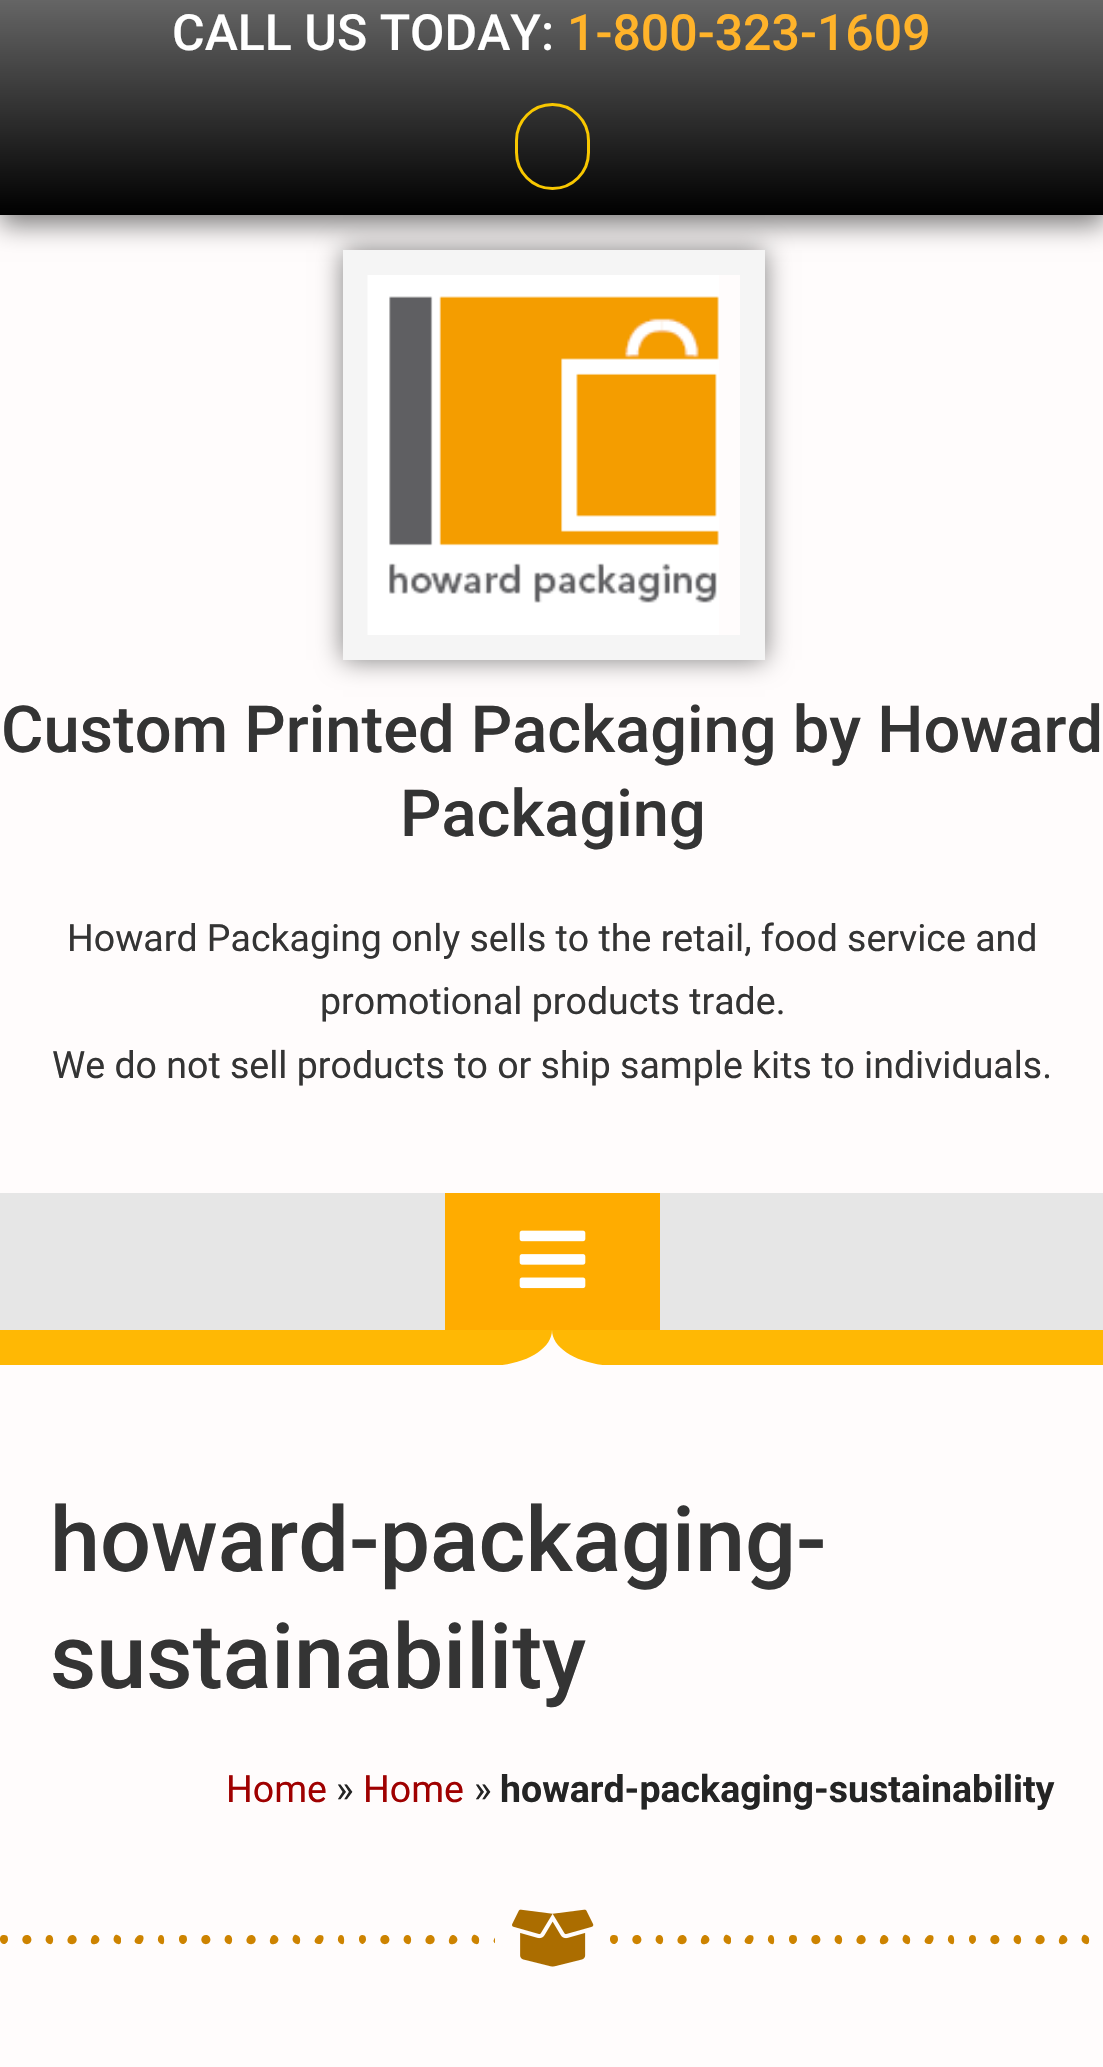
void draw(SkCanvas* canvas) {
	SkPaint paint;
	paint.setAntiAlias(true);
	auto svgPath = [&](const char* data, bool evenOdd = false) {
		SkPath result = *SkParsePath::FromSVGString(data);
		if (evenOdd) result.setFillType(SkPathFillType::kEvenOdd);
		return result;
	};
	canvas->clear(0xfffffcfc);
	paint.setColor(0x80000000);
	paint.setMaskFilter(SkMaskFilter::MakeBlur(kNormal_SkBlurStyle, 12.5));
	canvas->drawRect(SkRect::MakeXYWH(0, 10, 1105, 215), paint);
	paint.setMaskFilter(nullptr);
	{
		const SkColor colors[] = {0xff656565, 0xff000000};
		const float stops[] = {0, 1};
		const SkPoint ends[] = {{553, 0}, {553, 215}};
		paint.setShader(SkGradientShader::MakeLinear(ends, colors, stops, 2, SkTileMode::kClamp));
		paint.setAlpha(255);
	}
	canvas->drawRect(SkRect::MakeXYWH(0, 0, 1103, 215), paint);
	SkFont f1(fontMgr->matchFamilyStyle("Roboto", SkFontStyle(500, SkFontStyle::kNormal_Width, SkFontStyle::kUpright_Slant)), 50);
	f1.setSubpixel(true);
	paint.setShader(nullptr);
	paint.setColor(0xffffffff);
	canvas->drawString("CALL US TODAY:", 172, 50, f1, paint);
	paint.setColor(0xffffb32a);
	canvas->drawString("1-800-323-1609", 567, 50, f1, paint);
	paint.setStroke(true);
	paint.setStrokeWidth(3);
	paint.setColor(0xfff8c700);
	canvas->drawRoundRect(SkRect::MakeXYWH(516.5, 104.5, 72, 84), 36, 36, paint);
	canvas->save();
	canvas->clipPath(svgPath("M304 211H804V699H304ZM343 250H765V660H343Z", true), true);
	paint.setStroke(false);
	paint.setColor(0x80000000);
	paint.setMaskFilter(SkMaskFilter::MakeBlur(kNormal_SkBlurStyle, 12.5));
	canvas->drawRect(SkRect::MakeXYWH(343, 250, 422, 410), paint);
	paint.setMaskFilter(nullptr);
	canvas->restore();
	paint.setStroke(true);
	paint.setStrokeWidth(25);
	paint.setColor(0xfff5f5f5);
	canvas->drawRect(SkRect::MakeXYWH(355.5, 262.5, 397, 385), paint);
	canvas->drawImageRect(SkImages::DeferredFromEncodedData(SkData::MakeFromFileName("img1.png")), SkRect::MakeXYWH(367, 275, 352, 360), SkSamplingOptions());
	SkFont f2(fontMgr->matchFamilyStyle("Roboto", SkFontStyle(500, SkFontStyle::kNormal_Width, SkFontStyle::kUpright_Slant)), 65);
	f2.setSubpixel(true);
	paint.setStroke(false);
	paint.setColor(0xff343434);
	canvas->drawString("Custom Printed Packaging by Howard", 1, 752, f2, paint);
	canvas->drawString("Packaging", 400, 836, f2, paint);
	SkFont f3(fontMgr->matchFamilyStyle("Roboto", SkFontStyle::Normal()), 37.5);
	f3.setSubpixel(true);
	canvas->drawString("Howard Packaging only sells to the retail, food service and", 67, 951, f3, paint);
	canvas->drawString("promotional products trade.", 320, 1014, f3, paint);
	canvas->drawString("We do not sell products to or ship sample kits to individuals.", 52, 1078, f3, paint);
	canvas->save();
	canvas->clipRect(SkRect::MakeXYWH(0, 1328, 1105, 37));
	paint.setColor(0xffffb804);
	canvas->drawPath(svgPath("M487 1366C523 1366 552 1350 552 1330C552 1350 582 1366 618 1366H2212V1329H-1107V1366Z"), paint);
	canvas->restore();
	paint.setColor(0xffe6e6e6);
	canvas->drawRect(SkRect::MakeXYWH(0, 1193, 1103, 137), paint);
	paint.setColor(0xffffac00);
	canvas->drawRect(SkRect::MakeXYWH(445, 1193, 215, 137), paint);
	canvas->drawImageRect(SkImages::DeferredFromEncodedData(SkData::MakeFromFileName("img2.png")), SkRect::MakeXYWH(519, 1230, 67, 59), SkSamplingOptions());
	SkFont f4(fontMgr->matchFamilyStyle("Roboto", SkFontStyle(500, SkFontStyle::kNormal_Width, SkFontStyle::kUpright_Slant)), 90);
	f4.setSubpixel(true);
	paint.setColor(0xff343434);
	canvas->drawString("howard-packaging-", 50, 1571, f4, paint);
	canvas->drawString("sustainability", 50, 1688, f4, paint);
	paint.setColor(0xff9f0000);
	canvas->drawString("Home", 226, 1802, f3, paint);
	paint.setColor(0xff242424);
	canvas->drawString("»", 336, 1802, f3, paint);
	paint.setColor(0xff9f0000);
	canvas->drawString("Home", 363, 1802, f3, paint);
	paint.setColor(0xff242424);
	canvas->drawString("»", 474, 1802, f3, paint);
	SkFont f5(fontMgr->matchFamilyStyle("Roboto", SkFontStyle::Bold()), 37.5);
	f5.setSubpixel(true);
	canvas->drawString("howard-packaging-sustainability", 500, 1802, f5, paint);
	canvas->drawImageRect(SkImages::DeferredFromEncodedData(SkData::MakeFromFileName("img3.png")), SkRect::MakeXYWH(0, 1934, 495, 11), SkSamplingOptions());
	canvas->drawImageRect(SkImages::DeferredFromEncodedData(SkData::MakeFromFileName("img4.png")), SkRect::MakeXYWH(512, 1909, 82, 58), SkSamplingOptions());
	canvas->drawImageRect(SkImages::DeferredFromEncodedData(SkData::MakeFromFileName("img5.png")), SkRect::MakeXYWH(610, 1934, 480, 11), SkSamplingOptions());
}
